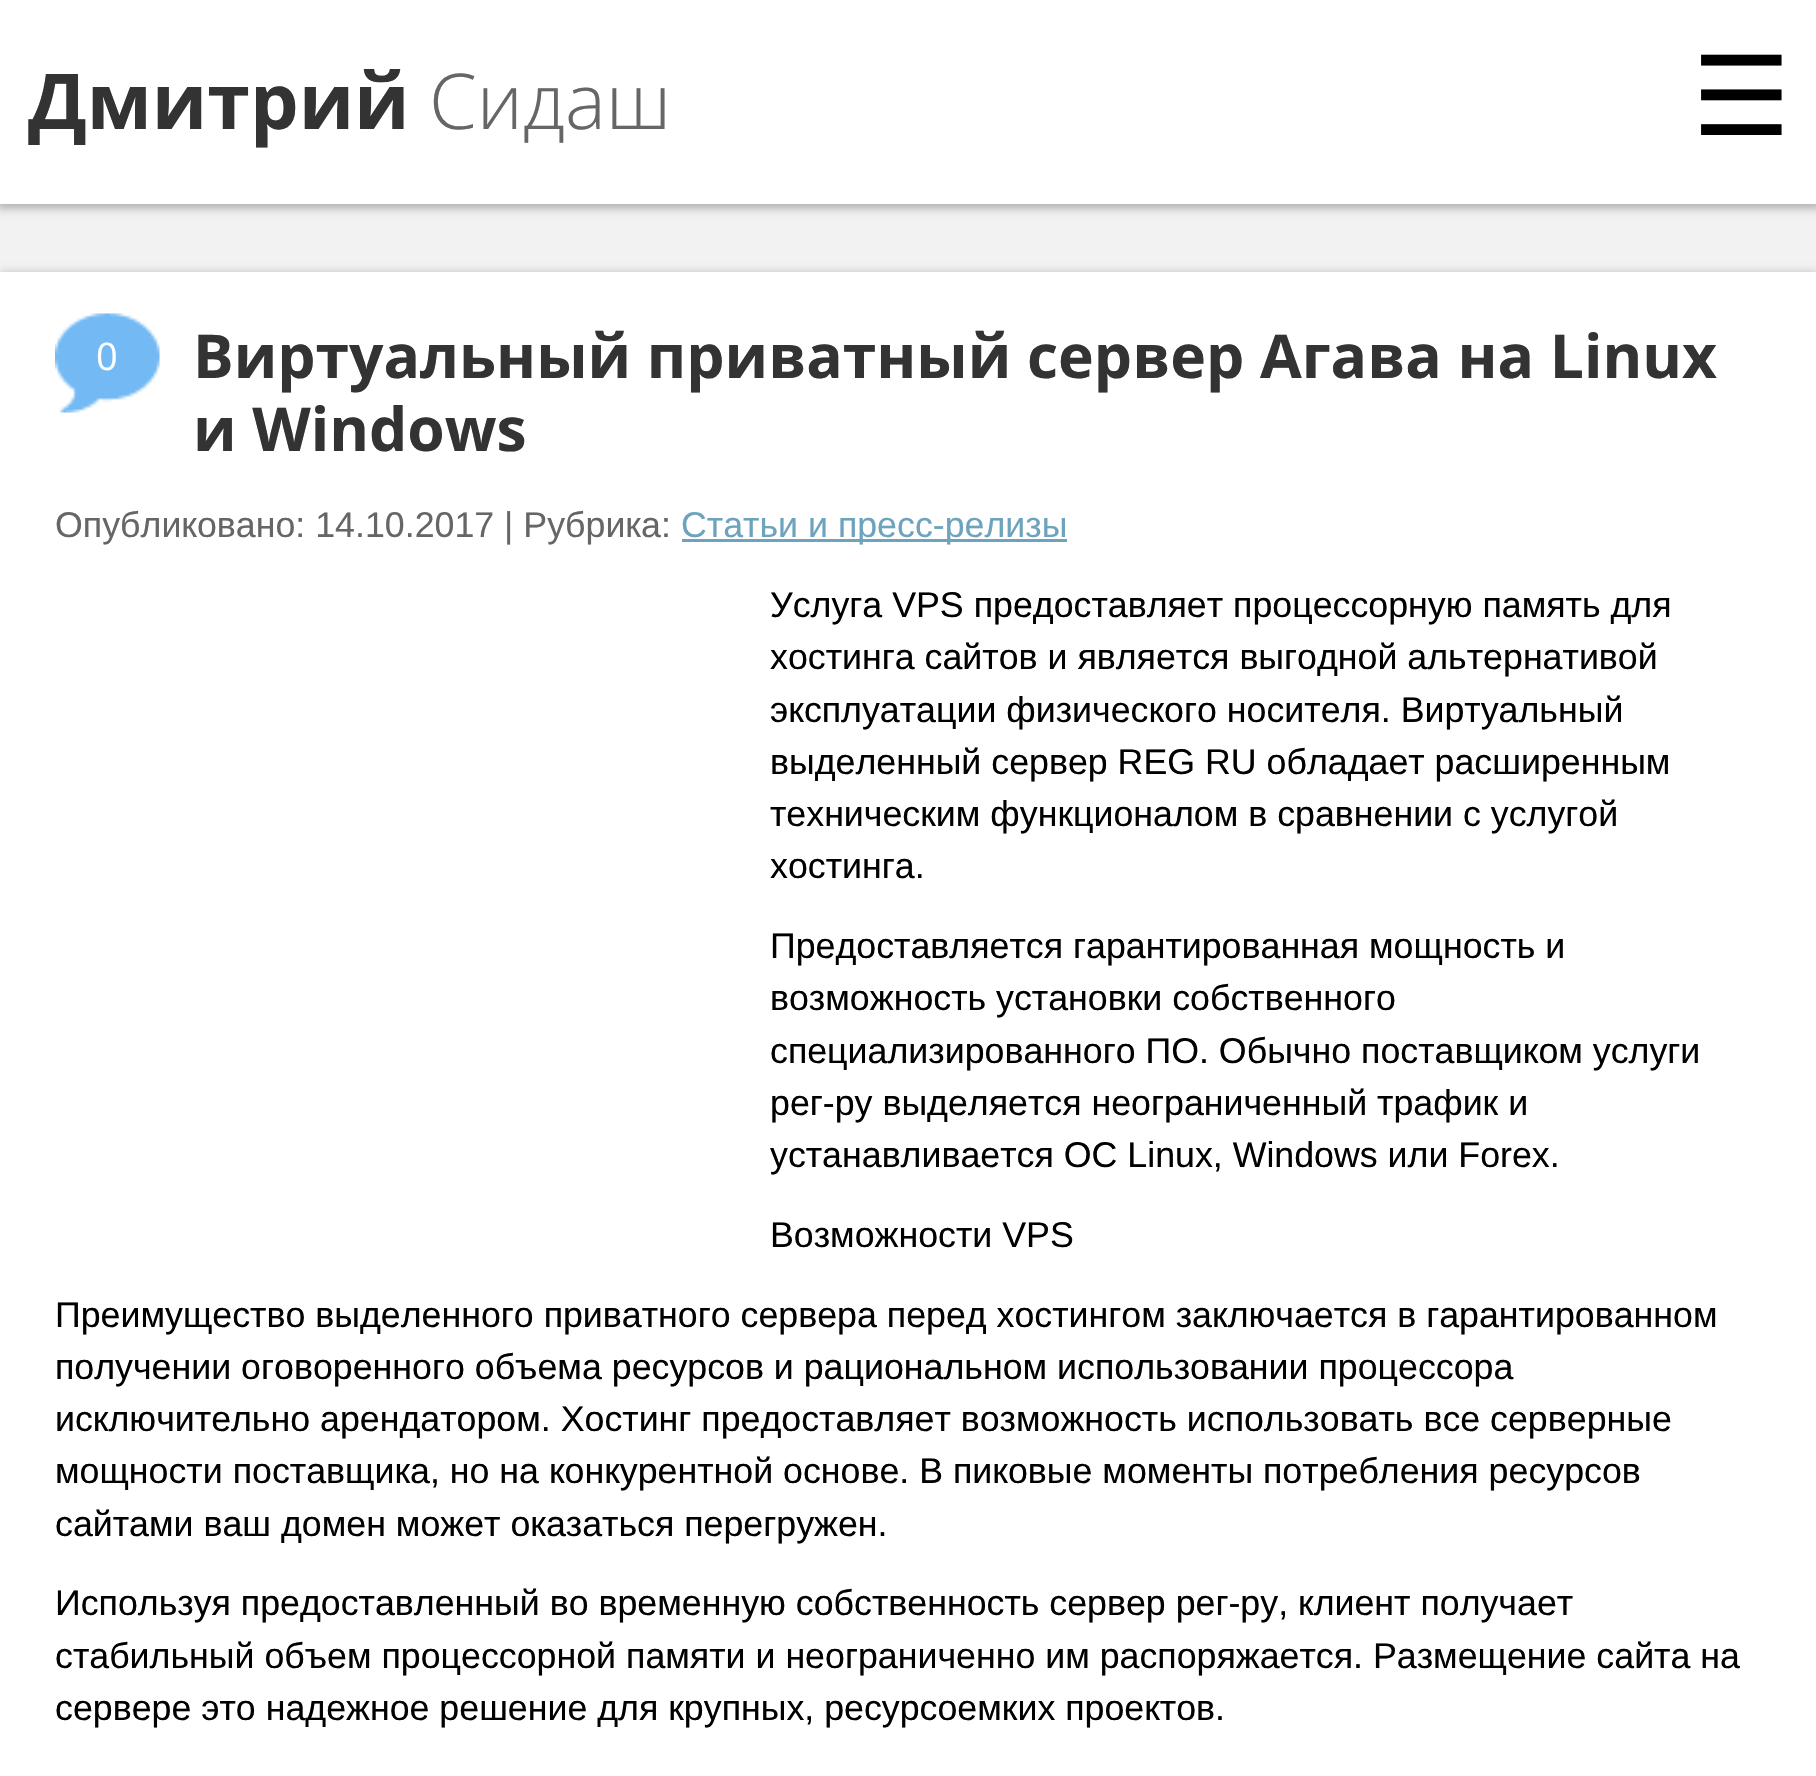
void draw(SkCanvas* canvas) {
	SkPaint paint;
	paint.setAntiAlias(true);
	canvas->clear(0xfff2f2f2);
	paint.setColor(0x40000000);
	paint.setMaskFilter(SkMaskFilter::MakeBlur(kNormal_SkBlurStyle, 4));
	canvas->drawRect(SkRect::MakeXYWH(-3, 0, 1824, 209), paint);
	paint.setMaskFilter(nullptr);
	paint.setColor(0xffffffff);
	canvas->drawRect(SkRect::MakeXYWH(0, 0, 1816, 204), paint);
	SkFont f1(fontMgr->matchFamilyStyle("Open Sans", SkFontStyle::Bold()), 77);
	f1.setSubpixel(true);
	paint.setColor(0xff333333);
	canvas->drawString("Дмитрий", 28, 129, f1, paint);
	SkFont f2(fontMgr->matchFamilyStyle("Open Sans", SkFontStyle(300, SkFontStyle::kNormal_Width, SkFontStyle::kUpright_Slant)), 77);
	f2.setSubpixel(true);
	paint.setColor(0xff666666);
	canvas->drawString("Сидаш", 429, 129, f2, paint);
	SkFont f3(fontMgr->matchFamilyStyle("DejaVu Sans", SkFontStyle::Normal()), 110);
	f3.setSubpixel(true);
	paint.setColor(0xff000000);
	canvas->drawString("☰", 1692, 135, f3, paint);
	paint.setColor(0x33000000);
	paint.setMaskFilter(SkMaskFilter::MakeBlur(kNormal_SkBlurStyle, 4));
	canvas->drawRect(SkRect::MakeXYWH(0, 272, 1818, 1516), paint);
	paint.setMaskFilter(nullptr);
	paint.setColor(0xffffffff);
	canvas->drawRect(SkRect::MakeXYWH(0, 272, 1816, 1504), paint);
	canvas->drawImageRect(SkImages::DeferredFromEncodedData(SkData::MakeFromFileName("img1.png")), SkRect::MakeXYWH(55, 313, 105, 100), SkSamplingOptions());
	SkFont f4(fontMgr->matchFamilyStyle("Open Sans", SkFontStyle::Normal()), 38);
	f4.setSubpixel(true);
	canvas->drawString("0", 96, 370, f4, paint);
	SkFont f5(fontMgr->matchFamilyStyle("Open Sans", SkFontStyle::Bold()), 60.5);
	f5.setSubpixel(true);
	paint.setColor(0xff333333);
	canvas->drawString("Виртуальный приватный сервер Агава на Linux", 193, 378, f5, paint);
	canvas->drawString("и Windows", 193, 451, f5, paint);
	SkFont f6(fontMgr->matchFamilyStyle("Liberation Sans", SkFontStyle::Normal()), 35.75);
	f6.setSubpixel(true);
	paint.setColor(0xff666666);
	canvas->drawString("Опубликовано: 14.10.2017 | Рубрика:", 55, 537, f6, paint);
	paint.setColor(0xff6da3bd);
	canvas->drawRect(SkRect::MakeXYWH(682, 539, 385, 3), paint);
	canvas->drawString("Статьи и пресс-релизы", 681, 537, f6, paint);
	paint.setColor(0xff000000);
	canvas->drawString("Услуга VPS предоставляет процессорную память для", 770, 617, f6, paint);
	canvas->drawString("хостинга сайтов и является выгодной альтернативой", 770, 669, f6, paint);
	canvas->drawString("эксплуатации физического носителя. Виртуальный", 770, 722, f6, paint);
	canvas->drawString("выделенный сервер REG RU обладает расширенным", 770, 774, f6, paint);
	canvas->drawString("техническим функционалом в сравнении с услугой", 770, 826, f6, paint);
	canvas->drawString("хостинга.", 770, 878, f6, paint);
	canvas->drawString("Предоставляется гарантированная мощность и", 770, 958, f6, paint);
	canvas->drawString("возможность установки собственного", 770, 1010, f6, paint);
	canvas->drawString("специализированного ПО. Обычно поставщиком услуги", 770, 1063, f6, paint);
	canvas->drawString("рег-ру выделяется неограниченный трафик и", 770, 1115, f6, paint);
	canvas->drawString("устанавливается ОС Linux, Windows или Forex.", 770, 1167, f6, paint);
	canvas->drawString("Возможности VPS", 770, 1247, f6, paint);
	canvas->drawString("Преимущество выделенного приватного сервера перед хостингом заключается в гарантированном", 55, 1327, f6, paint);
	canvas->drawString("получении оговоренного объема ресурсов и рациональном использовании процессора", 55, 1379, f6, paint);
	canvas->drawString("исключительно арендатором. Хостинг предоставляет возможность использовать все серверные", 55, 1431, f6, paint);
	canvas->drawString("мощности поставщика, но на конкурентной основе. В пиковые моменты потребления ресурсов", 55, 1483, f6, paint);
	canvas->drawString("сайтами ваш домен может оказаться перегружен.", 55, 1536, f6, paint);
	canvas->drawString("Используя предоставленный во временную собственность сервер рег-ру, клиент получает", 55, 1615, f6, paint);
	canvas->drawString("стабильный объем процессорной памяти и неограниченно им распоряжается. Размещение сайта на", 55, 1668, f6, paint);
	canvas->drawString("сервере это надежное решение для крупных, ресурсоемких проектов.", 55, 1720, f6, paint);
}
